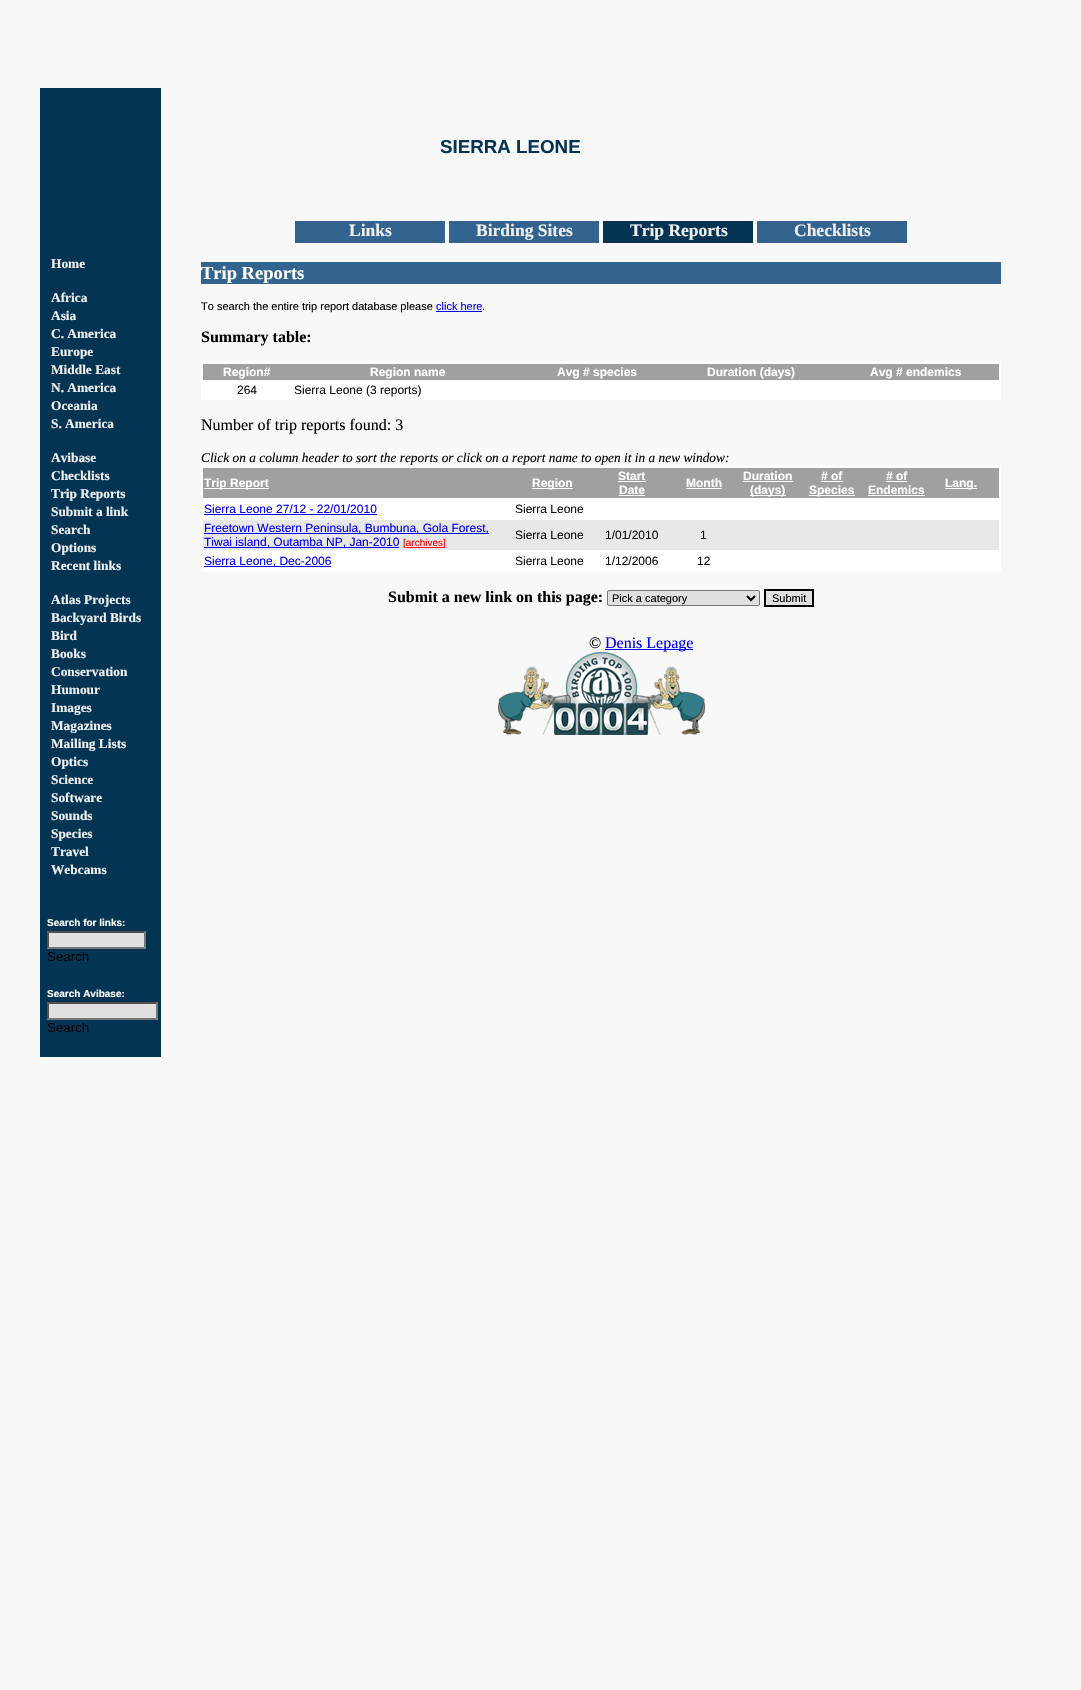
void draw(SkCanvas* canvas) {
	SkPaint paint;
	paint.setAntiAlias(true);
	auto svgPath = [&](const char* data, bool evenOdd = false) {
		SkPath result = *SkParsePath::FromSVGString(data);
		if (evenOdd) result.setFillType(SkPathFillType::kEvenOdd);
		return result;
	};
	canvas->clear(0xfff8f8f8);
	paint.setColor(0xff043454);
	canvas->drawRect(SkRect::MakeXYWH(40, 88, 121, 969), paint);
	SkFont f1(fontMgr->matchFamilyStyle("Liberation Serif", SkFontStyle::Bold()), 13.35);
	f1.setSubpixel(true);
	paint.setColor(0xfff0f0f0);
	canvas->drawString("Home", 51, 268, f1, paint);
	canvas->drawString("Africa", 51, 302, f1, paint);
	canvas->drawString("Asia", 51, 320, f1, paint);
	canvas->drawString("C. America", 51, 338, f1, paint);
	canvas->drawString("Europe", 51, 356, f1, paint);
	canvas->drawString("Middle East", 51, 374, f1, paint);
	canvas->drawString("N. America", 51, 392, f1, paint);
	canvas->drawString("Oceania", 51, 410, f1, paint);
	canvas->drawString("S. America", 51, 428, f1, paint);
	canvas->drawString("Avibase", 51, 462, f1, paint);
	canvas->drawString("Checklists", 51, 480, f1, paint);
	canvas->drawString("Trip Reports", 51, 498, f1, paint);
	canvas->drawString("Submit a link", 51, 516, f1, paint);
	canvas->drawString("Search", 51, 534, f1, paint);
	canvas->drawString("Options", 51, 552, f1, paint);
	canvas->drawString("Recent links", 51, 570, f1, paint);
	canvas->drawString("Atlas Projects", 51, 604, f1, paint);
	canvas->drawString("Backyard Birds", 51, 622, f1, paint);
	canvas->drawString("Bird", 51, 640, f1, paint);
	canvas->drawString("Books", 51, 658, f1, paint);
	canvas->drawString("Conservation", 51, 676, f1, paint);
	canvas->drawString("Humour", 51, 694, f1, paint);
	canvas->drawString("Images", 51, 712, f1, paint);
	canvas->drawString("Magazines", 51, 730, f1, paint);
	canvas->drawString("Mailing Lists", 51, 748, f1, paint);
	canvas->drawString("Optics", 51, 766, f1, paint);
	canvas->drawString("Science", 51, 784, f1, paint);
	canvas->drawString("Software", 51, 802, f1, paint);
	canvas->drawString("Sounds", 51, 820, f1, paint);
	canvas->drawString("Species", 51, 838, f1, paint);
	canvas->drawString("Travel", 51, 856, f1, paint);
	canvas->drawString("Webcams", 51, 874, f1, paint);
	SkFont f2(fontMgr->matchFamilyStyle("Liberation Sans", SkFontStyle::Bold()), 10);
	f2.setSubpixel(true);
	paint.setColor(0xffffffff);
	canvas->drawString("Search for links:", 47, 926, f2, paint);
	paint.setColor(0xffe0e0e0);
	canvas->drawRect(SkRect::MakeXYWH(47, 931, 99, 18), paint);
	paint.setColor(0xff4f4f4f);
	canvas->drawPath(svgPath("M47 931H146L144 933H49Z"), paint);
	paint.setColor(0xff767676);
	canvas->drawPath(svgPath("M146 931V949L144 947V933Z"), paint);
	canvas->drawPath(svgPath("M146 949H47L49 947H144Z"), paint);
	paint.setColor(0xff4f4f4f);
	canvas->drawPath(svgPath("M47 949V931L49 933V947Z"), paint);
	canvas->drawImageRect(SkImages::DeferredFromEncodedData(SkData::MakeFromFileName("img1.png")), SkRect::MakeXYWH(47, 952, 42, 9), SkSamplingOptions());
	paint.setColor(0xffffffff);
	canvas->drawString("Search Avibase:", 47, 997, f2, paint);
	paint.setColor(0xffe0e0e0);
	canvas->drawRect(SkRect::MakeXYWH(47, 1002, 111, 18), paint);
	paint.setColor(0xff4f4f4f);
	canvas->drawPath(svgPath("M47 1002H158L156 1004H49Z"), paint);
	paint.setColor(0xff767676);
	canvas->drawPath(svgPath("M158 1002V1020L156 1018V1004Z"), paint);
	canvas->drawPath(svgPath("M158 1020H47L49 1018H156Z"), paint);
	paint.setColor(0xff4f4f4f);
	canvas->drawPath(svgPath("M47 1020V1002L49 1004V1018Z"), paint);
	canvas->drawImageRect(SkImages::DeferredFromEncodedData(SkData::MakeFromFileName("img1.png")), SkRect::MakeXYWH(47, 1023, 42, 9), SkSamplingOptions());
	SkFont f3(fontMgr->matchFamilyStyle("Liberation Sans", SkFontStyle::Bold()), 18.75);
	f3.setSubpixel(true);
	paint.setColor(0xff043454);
	canvas->drawString("SIERRA LEONE", 440, 153, f3, paint);
	paint.setColor(0xff336490);
	canvas->drawRect(SkRect::MakeXYWH(295, 221, 150, 22), paint);
	SkFont f4(fontMgr->matchFamilyStyle("Liberation Serif", SkFontStyle::Bold()), 17.5);
	f4.setSubpixel(true);
	paint.setColor(0xfff0f0f0);
	canvas->drawString("Links", 349, 236, f4, paint);
	paint.setColor(0xff336490);
	canvas->drawRect(SkRect::MakeXYWH(449, 221, 150, 22), paint);
	paint.setColor(0xfff0f0f0);
	canvas->drawString("Birding Sites", 476, 236, f4, paint);
	paint.setColor(0xff043454);
	canvas->drawRect(SkRect::MakeXYWH(603, 221, 150, 22), paint);
	paint.setColor(0xfff0f0f0);
	canvas->drawString("Trip Reports", 630, 236, f4, paint);
	paint.setColor(0xff336490);
	canvas->drawRect(SkRect::MakeXYWH(757, 221, 150, 22), paint);
	paint.setColor(0xfff0f0f0);
	canvas->drawString("Checklists", 794, 236, f4, paint);
	paint.setColor(0xff336490);
	canvas->drawRect(SkRect::MakeXYWH(201, 262, 800, 22), paint);
	SkFont f5(fontMgr->matchFamilyStyle("Liberation Serif", SkFontStyle::Bold()), 18.5);
	f5.setSubpixel(true);
	paint.setColor(0xffffffff);
	canvas->drawString("Trip Reports", 201, 279, f5, paint);
	SkFont f6(fontMgr->matchFamilyStyle("Liberation Sans", SkFontStyle::Normal()), 11);
	f6.setSubpixel(true);
	paint.setColor(0xff000000);
	canvas->drawString("To search the entire trip report database please", 201, 310, f6, paint);
	paint.setColor(0xff0000ee);
	canvas->drawString("click here", 436, 310, f6, paint);
	paint.setColor(0xff000000);
	canvas->drawString(".", 482, 310, f6, paint);
	paint.setColor(0xff0000ee);
	canvas->drawRect(SkRect::MakeXYWH(436, 311, 46, 1), paint);
	SkFont f7(fontMgr->matchFamilyStyle("Liberation Serif", SkFontStyle::Bold()), 16);
	f7.setSubpixel(true);
	paint.setColor(0xff000000);
	canvas->drawString("Summary table:", 201, 342, f7, paint);
	paint.setColor(0xffffffff);
	canvas->drawRect(SkRect::MakeXYWH(201, 362, 800, 38), paint);
	paint.setColor(0xffa0a0a0);
	canvas->drawRect(SkRect::MakeXYWH(203, 364, 796, 16), paint);
	SkFont f8(fontMgr->matchFamilyStyle("Liberation Sans", SkFontStyle::Bold()), 12);
	f8.setSubpixel(true);
	paint.setColor(0xffffffff);
	canvas->drawString("Region#", 223, 376, f8, paint);
	canvas->drawString("Region name", 370, 376, f8, paint);
	canvas->drawString("Avg # species", 557, 376, f8, paint);
	canvas->drawString("Duration (days)", 707, 376, f8, paint);
	canvas->drawString("Avg # endemics", 870, 376, f8, paint);
	SkFont f9(fontMgr->matchFamilyStyle("Liberation Sans", SkFontStyle::Normal()), 12);
	f9.setSubpixel(true);
	paint.setColor(0xff0f0f0f);
	canvas->drawString("264", 237, 394, f9, paint);
	canvas->drawString("Sierra Leone (3 reports)", 294, 394, f9, paint);
	SkFont f10(fontMgr->matchFamilyStyle("Liberation Serif", SkFontStyle::Normal()), 16);
	f10.setSubpixel(true);
	paint.setColor(0xff000000);
	canvas->drawString("Number of trip reports found: 3", 201, 430, f10, paint);
	SkFont f11(fontMgr->matchFamilyStyle("Liberation Serif", SkFontStyle::Italic()), 13.35);
	f11.setSubpixel(true);
	canvas->drawString("Click on a column header to sort the reports or click on a report name to open it in a new window:", 201, 462, f11, paint);
	paint.setColor(0xffffffff);
	canvas->drawRect(SkRect::MakeXYWH(201, 466, 800, 106), paint);
	paint.setColor(0xffa0a0a0);
	canvas->drawRect(SkRect::MakeXYWH(203, 468, 796, 30), paint);
	paint.setColor(0xffffffff);
	canvas->drawRect(SkRect::MakeXYWH(204, 488, 65, 1), paint);
	canvas->drawString("Trip Report", 204, 487, f8, paint);
	canvas->drawRect(SkRect::MakeXYWH(532, 488, 41, 1), paint);
	canvas->drawString("Region", 532, 487, f8, paint);
	canvas->drawString("Start", 618, 480, f8, paint);
	canvas->drawRect(SkRect::MakeXYWH(618, 481, 28, 1), paint);
	canvas->drawString("Date", 619, 494, f8, paint);
	canvas->drawRect(SkRect::MakeXYWH(619, 495, 26, 1), paint);
	canvas->drawString("Month", 686, 487, f8, paint);
	canvas->drawRect(SkRect::MakeXYWH(686, 488, 36, 1), paint);
	canvas->drawString("Duration", 743, 480, f8, paint);
	canvas->drawRect(SkRect::MakeXYWH(743, 481, 50, 1), paint);
	canvas->drawRect(SkRect::MakeXYWH(750, 495, 36, 1), paint);
	canvas->drawString("(days)", 750, 494, f8, paint);
	canvas->drawString("# of", 821, 480, f8, paint);
	canvas->drawRect(SkRect::MakeXYWH(821, 481, 22, 1), paint);
	canvas->drawRect(SkRect::MakeXYWH(809, 495, 46, 1), paint);
	canvas->drawString("Species", 809, 494, f8, paint);
	canvas->drawString("# of", 886, 480, f8, paint);
	canvas->drawRect(SkRect::MakeXYWH(886, 481, 21, 1), paint);
	canvas->drawString("Endemics", 868, 494, f8, paint);
	canvas->drawRect(SkRect::MakeXYWH(868, 495, 57, 1), paint);
	canvas->drawRect(SkRect::MakeXYWH(945, 488, 32, 1), paint);
	canvas->drawString("Lang.", 945, 487, f8, paint);
	paint.setColor(0xff0000ee);
	canvas->drawString("Sierra Leone 27/12 - 22/01/2010", 204, 513, f9, paint);
	canvas->drawRect(SkRect::MakeXYWH(204, 514, 173, 1), paint);
	paint.setColor(0xff0f0f0f);
	canvas->drawString("Sierra Leone", 515, 513, f9, paint);
	paint.setColor(0xffe8e8e8);
	canvas->drawRect(SkRect::MakeXYWH(203, 520, 796, 30), paint);
	paint.setColor(0xff0000ee);
	canvas->drawRect(SkRect::MakeXYWH(204, 533, 285, 1), paint);
	canvas->drawString("Freetown Western Peninsula, Bumbuna, Gola Forest,", 204, 532, f9, paint);
	canvas->drawRect(SkRect::MakeXYWH(204, 547, 195, 1), paint);
	canvas->drawString("Tiwai island, Outamba NP, Jan-2010", 204, 546, f9, paint);
	SkFont f12(fontMgr->matchFamilyStyle("Liberation Sans", SkFontStyle::Normal()), 10);
	f12.setSubpixel(true);
	paint.setColor(0xffff0000);
	canvas->drawString("[archives", 403, 546, f12, paint);
	canvas->drawRect(SkRect::MakeXYWH(406, 547, 37, 1), paint);
	canvas->drawString("]", 443, 546, f12, paint);
	paint.setColor(0xff0f0f0f);
	canvas->drawString("Sierra Leone", 515, 539, f9, paint);
	canvas->drawString("1/01/2010", 605, 539, f9, paint);
	canvas->drawString("1", 700, 539, f9, paint);
	paint.setColor(0xff0000ee);
	canvas->drawRect(SkRect::MakeXYWH(204, 566, 127, 1), paint);
	canvas->drawString("Sierra Leone, Dec-2006", 204, 565, f9, paint);
	paint.setColor(0xff0f0f0f);
	canvas->drawString("Sierra Leone", 515, 565, f9, paint);
	canvas->drawString("1/12/2006", 605, 565, f9, paint);
	canvas->drawString("12", 697, 565, f9, paint);
	paint.setColor(0xff000000);
	canvas->drawString("Submit a new link on this page:", 388, 602, f7, paint);
	paint.setColor(0xffe0e0e0);
	canvas->drawRoundRect(SkRect::MakeXYWH(607.5, 590.5, 152, 15), 1.5, 1.5, paint);
	paint.setStroke(true);
	paint.setStrokeWidth(1);
	paint.setColor(0xff767676);
	canvas->drawRoundRect(SkRect::MakeXYWH(607.5, 590.5, 152, 15), 1.5, 1.5, paint);
	paint.setStrokeWidth(2);
	paint.setColor(0xff000000);
	canvas->drawPath(svgPath("M747 596L751 600L755 596"), paint);
	paint.setStroke(false);
	canvas->drawString("Pick a category", 612, 602, f6, paint);
	paint.setColor(0xffe0e0e0);
	canvas->drawRect(SkRect::MakeXYWH(765, 590, 48, 16), paint);
	paint.setStroke(true);
	paint.setColor(0xff000000);
	canvas->drawRect(SkRect::MakeXYWH(765, 590, 48, 16), paint);
	paint.setStroke(false);
	canvas->drawString("Submit", 772, 602, f6, paint);
	canvas->drawString("©", 589, 648, f10, paint);
	paint.setColor(0xff0000ee);
	canvas->drawRect(SkRect::MakeXYWH(605, 649, 88, 1), paint);
	canvas->drawString("Denis Lepage", 605, 648, f10, paint);
	canvas->drawImageRect(SkImages::DeferredFromEncodedData(SkData::MakeFromFileName("img2.png")), SkRect::MakeXYWH(498, 652, 207, 83), SkSamplingOptions());
}
